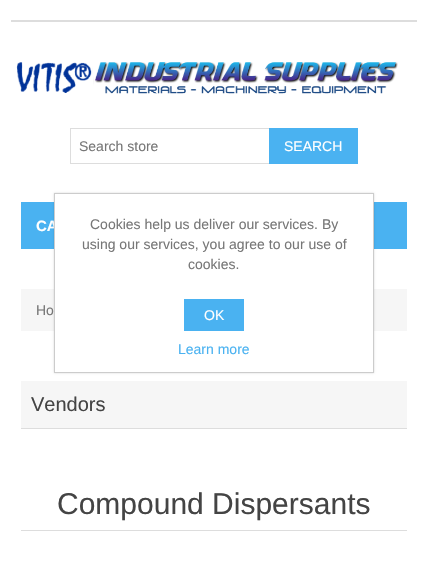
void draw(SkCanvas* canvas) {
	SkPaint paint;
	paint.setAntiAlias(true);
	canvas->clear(0xffffffff);
	paint.setColor(0xffdddddd);
	canvas->drawRect(SkRect::MakeXYWH(11, 20, 406, 2), paint);
	canvas->drawImageRect(SkImages::DeferredFromEncodedData(SkData::MakeFromFileName("img1.png")), SkRect::MakeXYWH(16, 62, 382, 32), SkSamplingOptions());
	paint.setStroke(true);
	paint.setStrokeWidth(1);
	canvas->drawRect(SkRect::MakeXYWH(70.5, 128.5, 199, 35), paint);
	SkFont f1(fontMgr->matchFamilyStyle("Liberation Sans", SkFontStyle::Normal()), 14);
	f1.setSubpixel(true);
	paint.setStroke(false);
	paint.setColor(0xff777777);
	canvas->drawString("Search store", 79, 151, f1, paint);
	paint.setColor(0xff4ab2f1);
	canvas->drawRect(SkRect::MakeXYWH(269, 128, 89, 36), paint);
	paint.setColor(0xffffffff);
	canvas->drawString("SEARCH", 284, 151, f1, paint);
	paint.setColor(0xff4ab2f1);
	canvas->drawRect(SkRect::MakeXYWH(21, 202, 386, 47), paint);
	SkFont f2(fontMgr->matchFamilyStyle("Liberation Sans", SkFontStyle::Bold()), 15);
	f2.setSubpixel(true);
	paint.setColor(0xffffffff);
	canvas->drawString("CA", 36, 231, f2, paint);
	paint.setColor(0xfff6f6f6);
	canvas->drawRect(SkRect::MakeXYWH(21, 289, 386, 42), paint);
	paint.setColor(0xff777777);
	canvas->drawString("Ho", 36, 315, f1, paint);
	paint.setColor(0xfff6f6f6);
	canvas->drawRect(SkRect::MakeXYWH(21, 381, 386, 47), paint);
	paint.setColor(0xffdddddd);
	canvas->drawRect(SkRect::MakeXYWH(21, 428, 386, 1), paint);
	SkFont f3(fontMgr->matchFamilyStyle("Liberation Sans", SkFontStyle::Normal()), 20);
	f3.setSubpixel(true);
	paint.setColor(0xff444444);
	canvas->drawString("Vendors", 31, 411, f3, paint);
	paint.setColor(0xffdddddd);
	canvas->drawRect(SkRect::MakeXYWH(21, 530, 386, 1), paint);
	SkFont f4(fontMgr->matchFamilyStyle("Liberation Sans", SkFontStyle::Normal()), 30);
	f4.setSubpixel(true);
	paint.setColor(0xff444444);
	canvas->drawString("Compound Dispersants", 57, 514, f4, paint);
	paint.setColor(0x26000000);
	paint.setMaskFilter(SkMaskFilter::MakeBlur(kNormal_SkBlurStyle, 1));
	canvas->drawRect(SkRect::MakeXYWH(54, 193, 320, 180), paint);
	paint.setMaskFilter(nullptr);
	paint.setColor(0xffffffff);
	canvas->drawRect(SkRect::MakeXYWH(54.5, 193.5, 319, 179), paint);
	paint.setStroke(true);
	paint.setColor(0xffcccccc);
	canvas->drawRect(SkRect::MakeXYWH(54.5, 193.5, 319, 179), paint);
	paint.setStroke(false);
	paint.setColor(0xff777777);
	canvas->drawString("Cookies help us deliver our services. By", 90, 229, f1, paint);
	canvas->drawString("using our services, you agree to our use of", 82, 249, f1, paint);
	canvas->drawString("cookies.", 188, 269, f1, paint);
	paint.setColor(0xff4ab2f1);
	canvas->drawRect(SkRect::MakeXYWH(184, 299, 60, 32), paint);
	paint.setColor(0xffffffff);
	canvas->drawString("OK", 204, 320, f1, paint);
	paint.setColor(0xff4ab2f1);
	canvas->drawString("Learn more", 178, 354, f1, paint);
}
